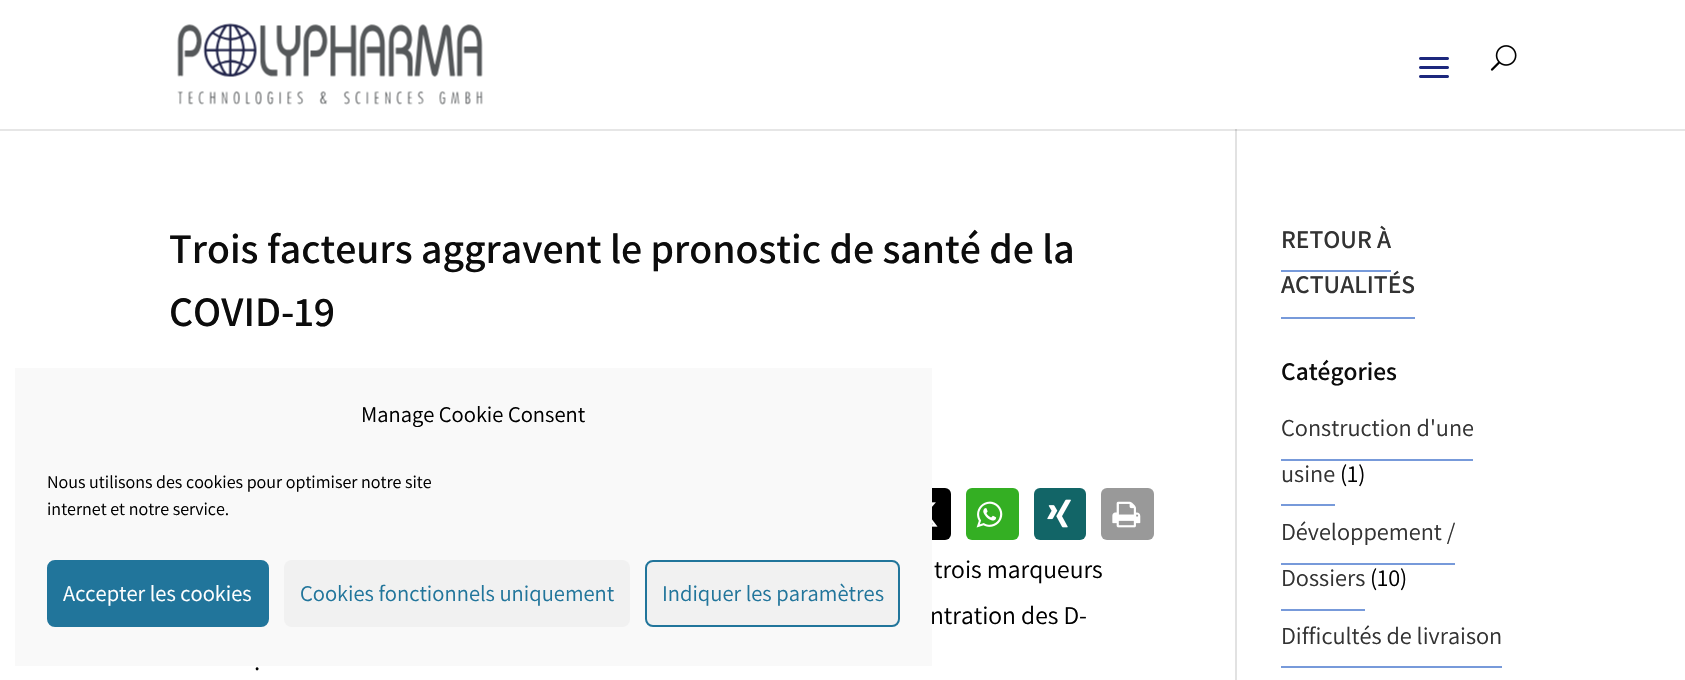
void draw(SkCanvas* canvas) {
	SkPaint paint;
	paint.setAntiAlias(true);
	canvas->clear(0xffffffff);
	paint.setColor(0xffe6e6e6);
	canvas->drawRect(SkRect::MakeXYWH(0, 129, 1685, 2), paint);
	canvas->drawImageRect(SkImages::DeferredFromEncodedData(SkData::MakeFromFileName("img1.png")), SkRect::MakeXYWH(177, 23, 306, 82), SkSamplingOptions());
	canvas->drawImageRect(SkImages::DeferredFromEncodedData(SkData::MakeFromFileName("img2.png")), SkRect::MakeXYWH(1419, 57, 30, 21), SkSamplingOptions());
	canvas->drawImageRect(SkImages::DeferredFromEncodedData(SkData::MakeFromFileName("img3.png")), SkRect::MakeXYWH(1490, 45, 27, 26), SkSamplingOptions());
	paint.setColor(0xffe2e2e2);
	canvas->drawRect(SkRect::MakeXYWH(1235, 129, 2, 551), paint);
	paint.setColor(0xffcbcbcb);
	canvas->drawRect(SkRect::MakeXYWH(1235, 129, 2, 2), paint);
	SkFont f1(fontMgr->matchFamilyStyle("Assistant", SkFontStyle(200, SkFontStyle::kNormal_Width, SkFontStyle::kUpright_Slant)), 42);
	f1.setSubpixel(true);
	paint.setColor(0xff0c0c0c);
	canvas->drawString("Trois facteurs aggravent le pronostic de santé de la", 169, 263, f1, paint);
	canvas->drawString("COVID-19", 169, 326, f1, paint);
	paint.setColor(0xff000000);
	canvas->drawRoundRect(SkRect::MakeXYWH(899, 488, 52, 52), 6, 6, paint);
	canvas->drawImageRect(SkImages::DeferredFromEncodedData(SkData::MakeFromFileName("img4.png")), SkRect::MakeXYWH(932, 502, 6, 25), SkSamplingOptions());
	paint.setColor(0xff34af23);
	canvas->drawRoundRect(SkRect::MakeXYWH(966, 488, 53, 52), 6, 6, paint);
	canvas->drawImageRect(SkImages::DeferredFromEncodedData(SkData::MakeFromFileName("img5.png")), SkRect::MakeXYWH(976, 501, 27, 27), SkSamplingOptions());
	paint.setColor(0xff126567);
	canvas->drawRoundRect(SkRect::MakeXYWH(1034, 488, 52, 52), 6, 6, paint);
	canvas->drawImageRect(SkImages::DeferredFromEncodedData(SkData::MakeFromFileName("img6.png")), SkRect::MakeXYWH(1047, 499, 24, 29), SkSamplingOptions());
	paint.setColor(0xff999999);
	canvas->drawRoundRect(SkRect::MakeXYWH(1101, 488, 53, 52), 6, 6, paint);
	canvas->drawImageRect(SkImages::DeferredFromEncodedData(SkData::MakeFromFileName("img7.png")), SkRect::MakeXYWH(1112, 501, 29, 27), SkSamplingOptions());
	SkFont f2(fontMgr->matchFamilyStyle("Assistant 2", SkFontStyle(200, SkFontStyle::kNormal_Width, SkFontStyle::kUpright_Slant)), 25.5);
	f2.setSubpixel(true);
	paint.setColor(0xff000000);
	canvas->drawString("trois marqueurs", 934, 578, f2, paint);
	canvas->drawString("ntration des D-", 930, 624, f2, paint);
	canvas->drawString(".", 254, 670, f2, paint);
	SkFont f3(fontMgr->matchFamilyStyle("Assistant", SkFontStyle(200, SkFontStyle::kNormal_Width, SkFontStyle::kUpright_Slant)), 25.5);
	f3.setSubpixel(true);
	paint.setColor(0xff333333);
	canvas->drawString("RETOUR À", 1281, 248, f3, paint);
	paint.setColor(0xff779ada);
	canvas->drawRect(SkRect::MakeXYWH(1281, 270, 110, 2), paint);
	paint.setColor(0xff333333);
	canvas->drawString("ACTUALITÉS", 1281, 293, f3, paint);
	paint.setColor(0xff779ada);
	canvas->drawRect(SkRect::MakeXYWH(1281, 317, 134, 2), paint);
	paint.setColor(0xff0c0c0c);
	canvas->drawString("Catégories", 1281, 380, f3, paint);
	SkFont f4(fontMgr->matchFamilyStyle("Assistant 2", SkFontStyle(200, SkFontStyle::kNormal_Width, SkFontStyle::kUpright_Slant)), 24.25);
	f4.setSubpixel(true);
	paint.setColor(0xff333333);
	canvas->drawString("Construction d'une", 1281, 436, f4, paint);
	canvas->drawString("usine", 1281, 482, f4, paint);
	paint.setColor(0xff779ada);
	canvas->drawRect(SkRect::MakeXYWH(1281, 459, 192, 2), paint);
	canvas->drawRect(SkRect::MakeXYWH(1281, 504, 54, 2), paint);
	paint.setColor(0xff000000);
	canvas->drawString("(1)", 1340, 482, f4, paint);
	paint.setColor(0xff333333);
	canvas->drawString("Développement /", 1281, 540, f4, paint);
	canvas->drawString("Dossiers", 1281, 586, f4, paint);
	paint.setColor(0xff779ada);
	canvas->drawRect(SkRect::MakeXYWH(1281, 563, 174, 2), paint);
	canvas->drawRect(SkRect::MakeXYWH(1281, 609, 84, 2), paint);
	paint.setColor(0xff000000);
	canvas->drawString("(10)", 1370, 586, f4, paint);
	paint.setColor(0xff333333);
	canvas->drawString("Difficultés de livraison", 1281, 644, f4, paint);
	paint.setColor(0xff779ada);
	canvas->drawRect(SkRect::MakeXYWH(1281, 666, 221, 2), paint);
	paint.setColor(0xfff9f9f9);
	canvas->drawRect(SkRect::MakeXYWH(15, 368, 917, 298), paint);
	SkFont f5(fontMgr->matchFamilyStyle("Assistant 2", SkFontStyle(200, SkFontStyle::kNormal_Width, SkFontStyle::kUpright_Slant)), 22.5);
	f5.setSubpixel(true);
	paint.setColor(0xff000000);
	canvas->drawString("Manage Cookie Consent", 361, 422, f5, paint);
	SkFont f6(fontMgr->matchFamilyStyle("Assistant 2", SkFontStyle(200, SkFontStyle::kNormal_Width, SkFontStyle::kUpright_Slant)), 18);
	f6.setSubpixel(true);
	canvas->drawString("Nous utilisons des cookies pour optimiser notre site", 47, 488, f6, paint);
	canvas->drawString("internet et notre service.", 47, 515, f6, paint);
	paint.setColor(0xff21759b);
	canvas->drawRoundRect(SkRect::MakeXYWH(48, 561, 220, 65), 7, 7, paint);
	paint.setStroke(true);
	paint.setStrokeWidth(2);
	canvas->drawRoundRect(SkRect::MakeXYWH(48, 561, 220, 65), 7, 7, paint);
	paint.setStroke(false);
	paint.setColor(0xffffffff);
	canvas->drawString("Accepter les cookies", 63, 601, f5, paint);
	paint.setColor(0xfff1f1f1);
	canvas->drawRoundRect(SkRect::MakeXYWH(284, 560, 346, 67), 8, 8, paint);
	paint.setColor(0xff21759b);
	canvas->drawString("Cookies fonctionnels uniquement", 300, 601, f5, paint);
	paint.setColor(0xfff1f1f1);
	canvas->drawRoundRect(SkRect::MakeXYWH(646, 561, 253, 65), 7, 7, paint);
	paint.setStroke(true);
	paint.setColor(0xff21759b);
	canvas->drawRoundRect(SkRect::MakeXYWH(646, 561, 253, 65), 7, 7, paint);
	paint.setStroke(false);
	canvas->drawString("Indiquer les paramètres", 662, 601, f5, paint);
}
